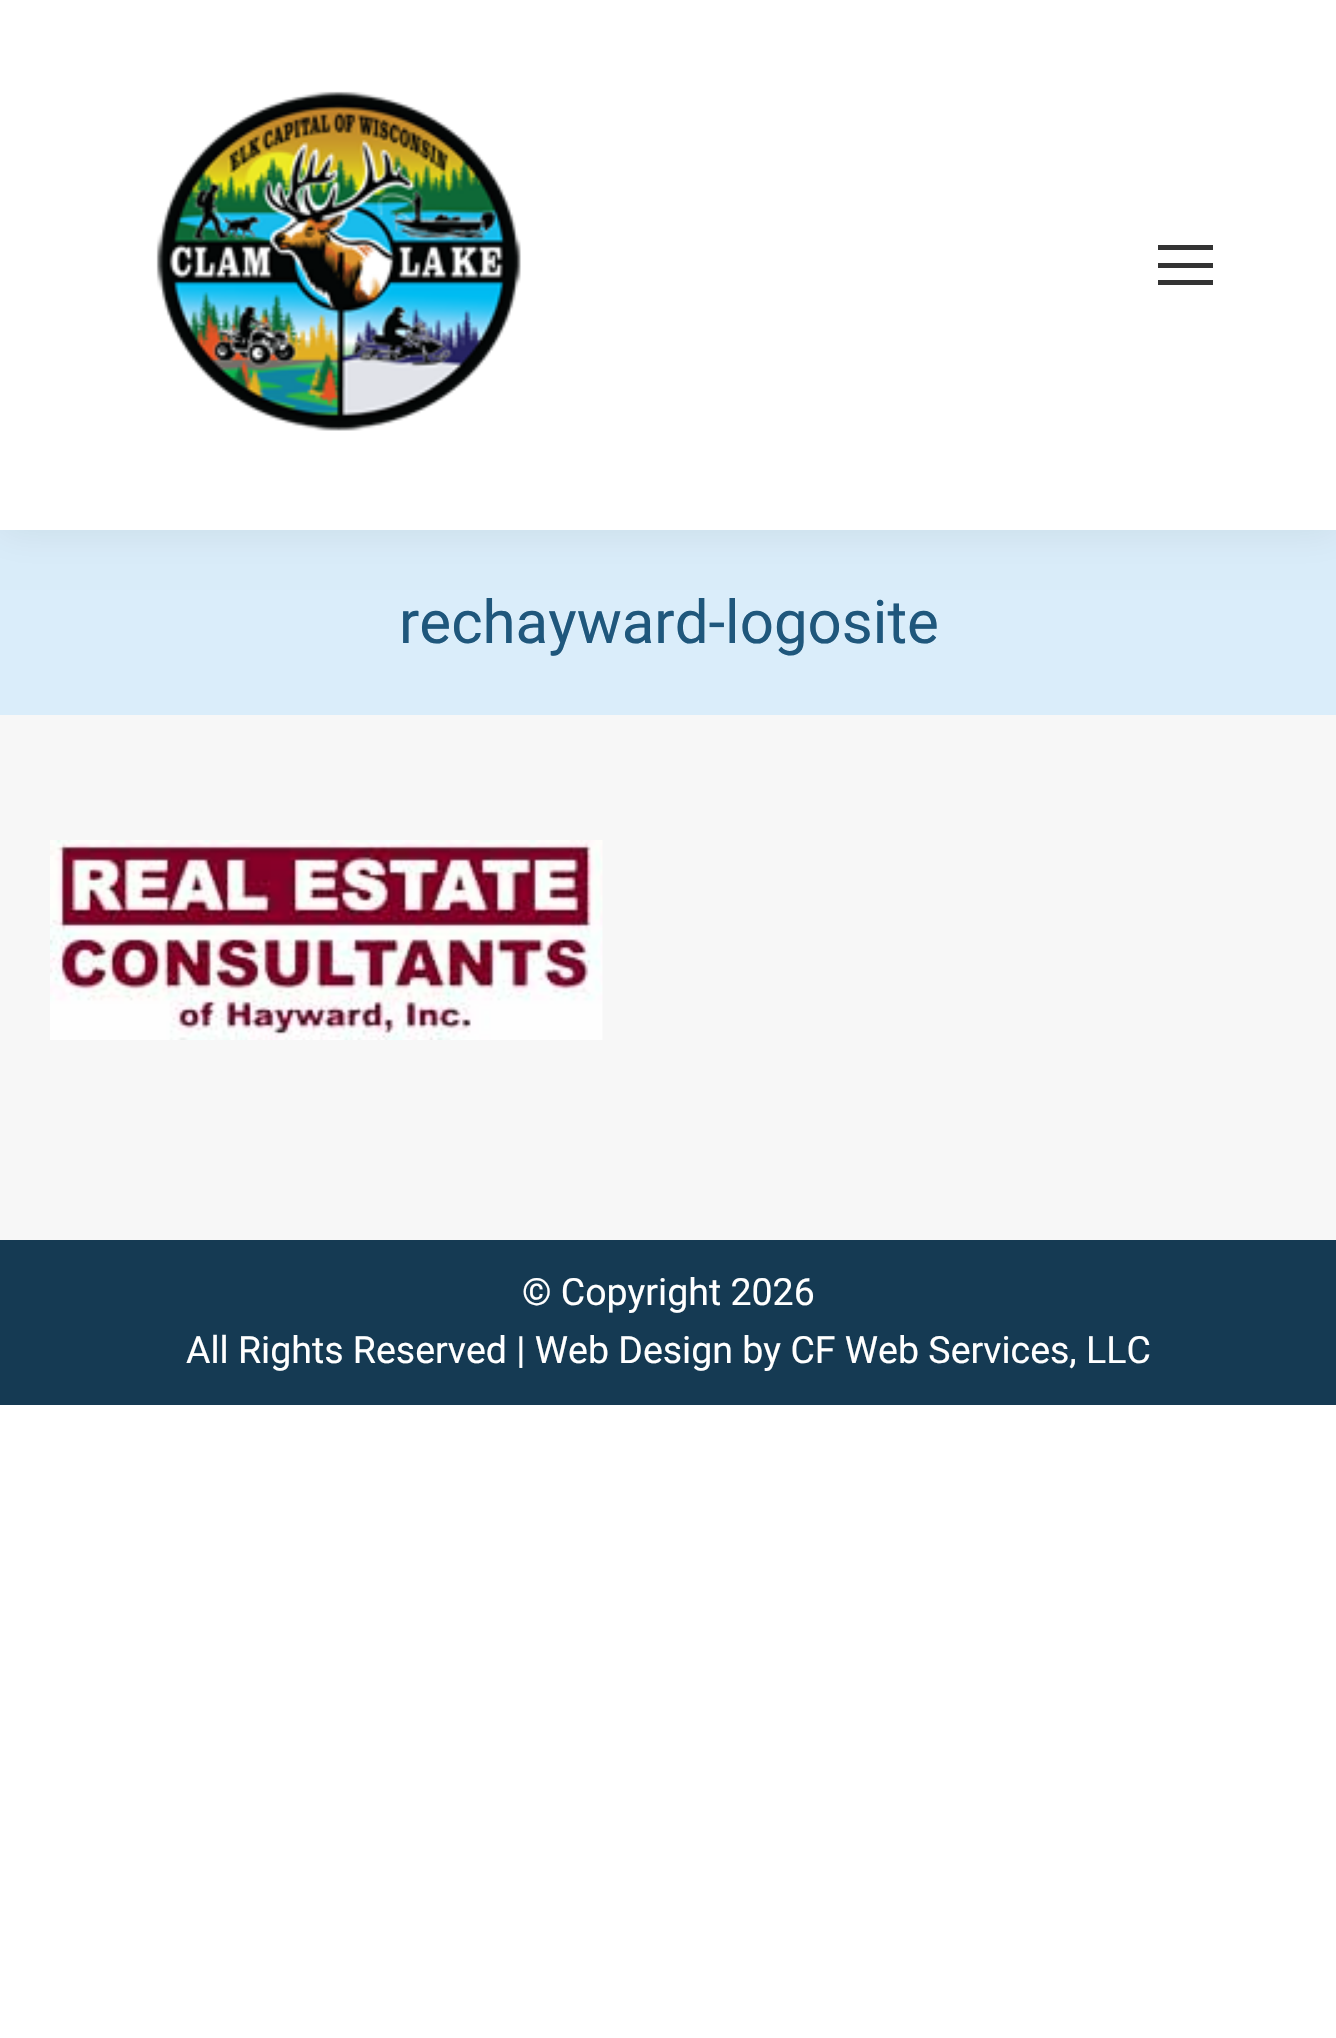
void draw(SkCanvas* canvas) {
	SkPaint paint;
	paint.setAntiAlias(true);
	canvas->clear(0xffffffff);
	paint.setColor(0xfff7f7f7);
	canvas->drawRect(SkRect::MakeXYWH(0, 715, 1336, 525), paint);
	paint.setColor(0xffdaedfa);
	canvas->drawRect(SkRect::MakeXYWH(0, 530, 1336, 185), paint);
	paint.setColor(0x12000000);
	paint.setMaskFilter(SkMaskFilter::MakeBlur(kNormal_SkBlurStyle, 19));
	canvas->drawRect(SkRect::MakeXYWH(-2, -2, 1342, 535), paint);
	paint.setMaskFilter(nullptr);
	paint.setColor(0xffffffff);
	canvas->drawRect(SkRect::MakeXYWH(0, 0, 1336, 530), paint);
	canvas->drawImageRect(SkImages::DeferredFromEncodedData(SkData::MakeFromFileName("img1.png")), SkRect::MakeXYWH(156, 91, 365, 340), SkSamplingOptions());
	paint.setColor(0xff333333);
	canvas->drawRect(SkRect::MakeXYWH(1158, 263, 55, 5), paint);
	canvas->drawRect(SkRect::MakeXYWH(1158, 245, 55, 5), paint);
	canvas->drawRect(SkRect::MakeXYWH(1158, 280, 55, 5), paint);
	SkFont f1(fontMgr->matchFamilyStyle("Roboto", SkFontStyle::Normal()), 60);
	f1.setSubpixel(true);
	paint.setColor(0xff1f577c);
	canvas->drawString("rechayward-logosite", 399, 643, f1, paint);
	canvas->drawImageRect(SkImages::DeferredFromEncodedData(SkData::MakeFromFileName("img2.png")), SkRect::MakeXYWH(50, 840, 553, 200), SkSamplingOptions());
	paint.setColor(0xff153a53);
	canvas->drawRect(SkRect::MakeXYWH(0, 1240, 1336, 165), paint);
	SkFont f2(fontMgr->matchFamilyStyle("Roboto", SkFontStyle::Normal()), 37.5);
	f2.setSubpixel(true);
	paint.setColor(0xffffffff);
	canvas->drawString("© Copyright 2026", 522, 1305, f2, paint);
	canvas->drawString("All Rights Reserved | Web Design by CF Web Services, LLC", 186, 1363, f2, paint);
}
